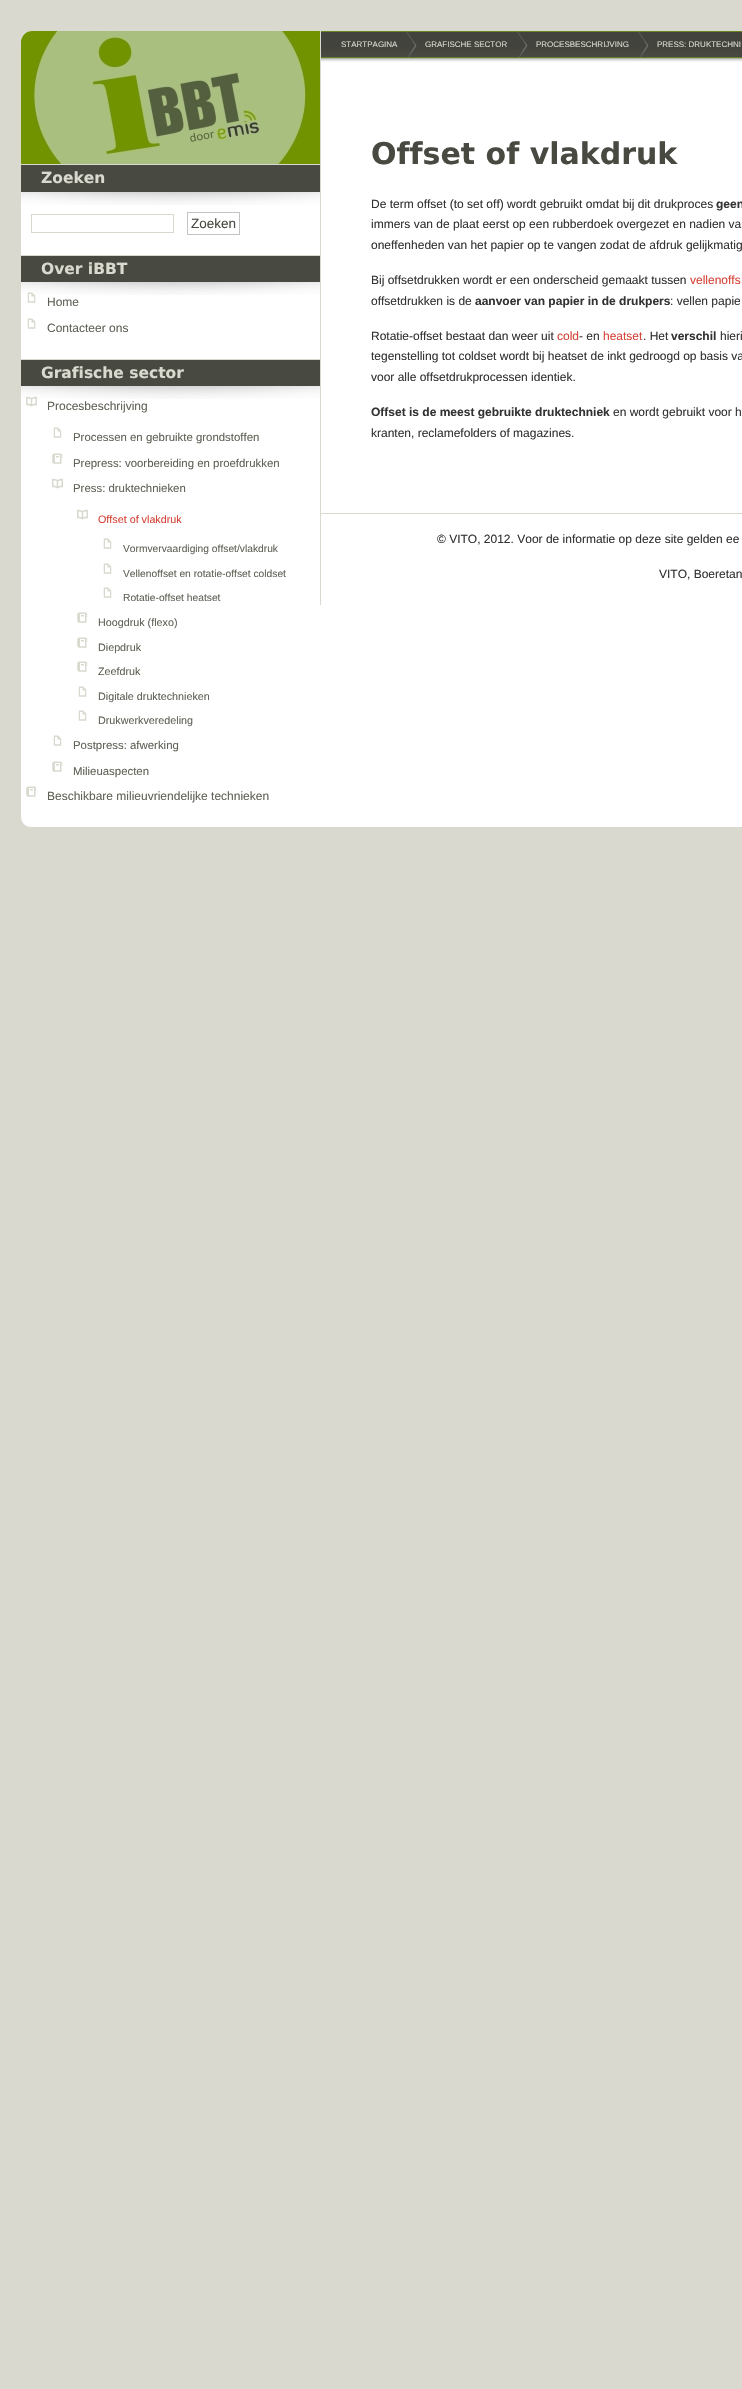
void draw(SkCanvas* canvas) {
	SkPaint paint;
	paint.setAntiAlias(true);
	canvas->clear(0xffd9d9cf);
	paint.setColor(0xffffffff);
	canvas->drawRoundRect(SkRect::MakeXYWH(20.5, 30.5, 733, 797), 10.5, 10.5, paint);
	paint.setStroke(true);
	paint.setStrokeWidth(1);
	paint.setColor(0xffd9d9cf);
	canvas->drawRoundRect(SkRect::MakeXYWH(20.5, 30.5, 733, 797), 10.5, 10.5, paint);
	canvas->drawImageRect(SkImages::DeferredFromEncodedData(SkData::MakeFromFileName("img1.png")), SkRect::MakeXYWH(21, 31, 299, 133), SkSamplingOptions());
	paint.setStroke(false);
	paint.setColor(0xff484941);
	canvas->drawRect(SkRect::MakeXYWH(21, 165, 299, 27), paint);
	paint.setColor(0xffd9d9cf);
	canvas->drawRect(SkRect::MakeXYWH(21, 164, 299, 1), paint);
	SkFont f1(fontMgr->matchFamilyStyle("DejaVu Sans", SkFontStyle::Bold()), 15.5);
	f1.setSubpixel(true);
	canvas->drawString("Zoeken", 41, 183, f1, paint);
	canvas->drawImageRect(SkImages::DeferredFromEncodedData(SkData::MakeFromFileName("img2.png")), SkRect::MakeXYWH(21, 192, 299, 13), SkSamplingOptions());
	paint.setStroke(true);
	canvas->drawRect(SkRect::MakeXYWH(31.5, 214.5, 142, 18), paint);
	paint.setColor(0xffc3c3c3);
	canvas->drawRect(SkRect::MakeXYWH(187.5, 212.5, 52, 22), paint);
	SkFont f2(fontMgr->matchFamilyStyle("Liberation Sans", SkFontStyle::Normal()), 13.5);
	f2.setSubpixel(true);
	paint.setStroke(false);
	paint.setColor(0xff484941);
	canvas->drawString("Zoeken", 191, 228, f2, paint);
	canvas->drawRect(SkRect::MakeXYWH(21, 256, 299, 26), paint);
	paint.setColor(0xffd9d9cf);
	canvas->drawRect(SkRect::MakeXYWH(21, 255, 299, 1), paint);
	canvas->drawString("Over iBBT", 41, 274, f1, paint);
	canvas->drawImageRect(SkImages::DeferredFromEncodedData(SkData::MakeFromFileName("img2.png")), SkRect::MakeXYWH(21, 282, 299, 13), SkSamplingOptions());
	canvas->drawImageRect(SkImages::DeferredFromEncodedData(SkData::MakeFromFileName("img3.png")), SkRect::MakeXYWH(27, 292, 9, 11), SkSamplingOptions());
	SkFont f3(fontMgr->matchFamilyStyle("Liberation Sans", SkFontStyle::Normal()), 12);
	f3.setSubpixel(true);
	paint.setColor(0xff616157);
	canvas->drawString("Home", 47, 306, f3, paint);
	canvas->drawImageRect(SkImages::DeferredFromEncodedData(SkData::MakeFromFileName("img4.png")), SkRect::MakeXYWH(27, 318, 9, 11), SkSamplingOptions());
	canvas->drawString("Contacteer ons", 47, 332, f3, paint);
	paint.setColor(0xff484941);
	canvas->drawRect(SkRect::MakeXYWH(21, 360, 299, 26), paint);
	paint.setColor(0xffd9d9cf);
	canvas->drawRect(SkRect::MakeXYWH(21, 359, 299, 1), paint);
	canvas->drawString("Grafische sector", 41, 378, f1, paint);
	canvas->drawImageRect(SkImages::DeferredFromEncodedData(SkData::MakeFromFileName("img2.png")), SkRect::MakeXYWH(21, 386, 299, 13), SkSamplingOptions());
	canvas->drawImageRect(SkImages::DeferredFromEncodedData(SkData::MakeFromFileName("img5.png")), SkRect::MakeXYWH(26, 396, 11, 11), SkSamplingOptions());
	paint.setColor(0xff616157);
	canvas->drawString("Procesbeschrijving", 47, 410, f3, paint);
	canvas->drawImageRect(SkImages::DeferredFromEncodedData(SkData::MakeFromFileName("img4.png")), SkRect::MakeXYWH(53, 427, 9, 11), SkSamplingOptions());
	SkFont f4(fontMgr->matchFamilyStyle("Liberation Sans", SkFontStyle::Normal()), 11.4);
	f4.setSubpixel(true);
	canvas->drawString("Processen en gebruikte grondstoffen", 73, 441, f4, paint);
	canvas->drawImageRect(SkImages::DeferredFromEncodedData(SkData::MakeFromFileName("img6.png")), SkRect::MakeXYWH(52, 453, 11, 11), SkSamplingOptions());
	canvas->drawString("Prepress: voorbereiding en proefdrukken", 73, 467, f4, paint);
	canvas->drawImageRect(SkImages::DeferredFromEncodedData(SkData::MakeFromFileName("img7.png")), SkRect::MakeXYWH(52, 478, 11, 11), SkSamplingOptions());
	canvas->drawString("Press: druktechnieken", 73, 492, f4, paint);
	canvas->drawImageRect(SkImages::DeferredFromEncodedData(SkData::MakeFromFileName("img7.png")), SkRect::MakeXYWH(77, 509, 11, 11), SkSamplingOptions());
	SkFont f5(fontMgr->matchFamilyStyle("Liberation Sans", SkFontStyle::Normal()), 10.75);
	f5.setSubpixel(true);
	paint.setColor(0xffd54336);
	canvas->drawString("Offset of vlakdruk", 98, 523, f5, paint);
	canvas->drawImageRect(SkImages::DeferredFromEncodedData(SkData::MakeFromFileName("img4.png")), SkRect::MakeXYWH(103, 538, 9, 11), SkSamplingOptions());
	SkFont f6(fontMgr->matchFamilyStyle("Liberation Sans", SkFontStyle::Normal()), 10.25);
	f6.setSubpixel(true);
	paint.setColor(0xff616157);
	canvas->drawString("Vormvervaardiging offset/vlakdruk", 123, 552, f6, paint);
	canvas->drawImageRect(SkImages::DeferredFromEncodedData(SkData::MakeFromFileName("img4.png")), SkRect::MakeXYWH(103, 563, 9, 11), SkSamplingOptions());
	canvas->drawString("Vellenoffset en rotatie-offset coldset", 123, 577, f6, paint);
	canvas->drawImageRect(SkImages::DeferredFromEncodedData(SkData::MakeFromFileName("img4.png")), SkRect::MakeXYWH(103, 587, 9, 11), SkSamplingOptions());
	canvas->drawString("Rotatie-offset heatset", 123, 601, f6, paint);
	canvas->drawImageRect(SkImages::DeferredFromEncodedData(SkData::MakeFromFileName("img6.png")), SkRect::MakeXYWH(77, 612, 11, 11), SkSamplingOptions());
	canvas->drawString("Hoogdruk (flexo)", 98, 626, f5, paint);
	canvas->drawImageRect(SkImages::DeferredFromEncodedData(SkData::MakeFromFileName("img6.png")), SkRect::MakeXYWH(77, 637, 11, 11), SkSamplingOptions());
	canvas->drawString("Diepdruk", 98, 651, f5, paint);
	canvas->drawImageRect(SkImages::DeferredFromEncodedData(SkData::MakeFromFileName("img6.png")), SkRect::MakeXYWH(77, 661, 11, 11), SkSamplingOptions());
	canvas->drawString("Zeefdruk", 98, 675, f5, paint);
	canvas->drawImageRect(SkImages::DeferredFromEncodedData(SkData::MakeFromFileName("img4.png")), SkRect::MakeXYWH(78, 686, 9, 11), SkSamplingOptions());
	canvas->drawString("Digitale druktechnieken", 98, 700, f5, paint);
	canvas->drawImageRect(SkImages::DeferredFromEncodedData(SkData::MakeFromFileName("img4.png")), SkRect::MakeXYWH(78, 710, 9, 11), SkSamplingOptions());
	canvas->drawString("Drukwerkveredeling", 98, 724, f5, paint);
	canvas->drawImageRect(SkImages::DeferredFromEncodedData(SkData::MakeFromFileName("img4.png")), SkRect::MakeXYWH(53, 735, 9, 11), SkSamplingOptions());
	canvas->drawString("Postpress: afwerking", 73, 749, f4, paint);
	canvas->drawImageRect(SkImages::DeferredFromEncodedData(SkData::MakeFromFileName("img6.png")), SkRect::MakeXYWH(52, 761, 11, 11), SkSamplingOptions());
	canvas->drawString("Milieuaspecten", 73, 775, f4, paint);
	canvas->drawImageRect(SkImages::DeferredFromEncodedData(SkData::MakeFromFileName("img6.png")), SkRect::MakeXYWH(26, 786, 11, 11), SkSamplingOptions());
	canvas->drawString("Beschikbare milieuvriendelijke technieken", 47, 800, f3, paint);
	paint.setColor(0xffd9d9cf);
	canvas->drawRect(SkRect::MakeXYWH(320, 31, 1, 574), paint);
	canvas->drawImageRect(SkImages::DeferredFromEncodedData(SkData::MakeFromFileName("img8.png")), SkRect::MakeXYWH(321, 31, 421, 31), SkSamplingOptions());
	canvas->drawImageRect(SkImages::DeferredFromEncodedData(SkData::MakeFromFileName("img12.png")), SkRect::MakeXYWH(639, 32, 103, 25), SkSamplingOptions());
	canvas->drawImageRect(SkImages::DeferredFromEncodedData(SkData::MakeFromFileName("img11.png")), SkRect::MakeXYWH(518, 32, 131, 25), SkSamplingOptions());
	canvas->drawImageRect(SkImages::DeferredFromEncodedData(SkData::MakeFromFileName("img10.png")), SkRect::MakeXYWH(407, 32, 121, 25), SkSamplingOptions());
	canvas->drawImageRect(SkImages::DeferredFromEncodedData(SkData::MakeFromFileName("img9.png")), SkRect::MakeXYWH(321, 32, 96, 25), SkSamplingOptions());
	SkFont f7(fontMgr->matchFamilyStyle("Liberation Sans", SkFontStyle::Normal()), 8);
	f7.setSubpixel(true);
	canvas->drawString("STARTPAGINA", 341, 47, f7, paint);
	canvas->drawString("GRAFISCHE SECTOR", 425, 47, f7, paint);
	canvas->drawString("PROCESBESCHRIJVING", 536, 47, f7, paint);
	canvas->drawString("PRESS: DRUKTECHNI", 657, 47, f7, paint);
	SkFont f8(fontMgr->matchFamilyStyle("DejaVu Sans", SkFontStyle::Bold()), 30);
	f8.setSubpixel(true);
	paint.setColor(0xff484941);
	canvas->drawString("Offset of vlakdruk", 371, 164, f8, paint);
	paint.setColor(0xff333333);
	canvas->drawString("De term offset (to set off) wordt gebruikt omdat bij dit drukproces", 371, 208, f3, paint);
	SkFont f9(fontMgr->matchFamilyStyle("Liberation Sans", SkFontStyle::Bold()), 12);
	f9.setSubpixel(true);
	canvas->drawString("geen", 716, 208, f9, paint);
	canvas->drawString("immers van de plaat eerst op een rubberdoek overgezet en nadien va", 371, 228, f3, paint);
	canvas->drawString("oneffenheden van het papier op te vangen zodat de afdruk gelijkmatig", 371, 249, f3, paint);
	canvas->drawString("Bij offsetdrukken wordt er een onderscheid gemaakt tussen", 371, 284, f3, paint);
	paint.setColor(0xffd54336);
	canvas->drawString("vellenoffs", 690, 284, f3, paint);
	paint.setColor(0xff333333);
	canvas->drawString("offsetdrukken is de", 371, 305, f3, paint);
	canvas->drawString("aanvoer van papier in de drukpers", 475, 305, f9, paint);
	canvas->drawString(": vellen papie", 670, 305, f3, paint);
	canvas->drawString("Rotatie-offset bestaat dan weer uit", 371, 340, f3, paint);
	paint.setColor(0xffd54336);
	canvas->drawString("cold", 557, 340, f3, paint);
	paint.setColor(0xff333333);
	canvas->drawString("- en", 579, 340, f3, paint);
	paint.setColor(0xffd54336);
	canvas->drawString("heatset", 603, 340, f3, paint);
	paint.setColor(0xff333333);
	canvas->drawString(". Het", 643, 340, f3, paint);
	canvas->drawString("verschil", 671, 340, f9, paint);
	canvas->drawString("hieri", 720, 340, f3, paint);
	canvas->drawString("tegenstelling tot coldset wordt bij heatset de inkt gedroogd op basis va", 371, 360, f3, paint);
	canvas->drawString("voor alle offsetdrukprocessen identiek.", 371, 381, f3, paint);
	canvas->drawString("Offset is de meest gebruikte druktechniek", 371, 416, f9, paint);
	canvas->drawString("en wordt gebruikt voor h", 613, 416, f3, paint);
	canvas->drawString("kranten, reclamefolders of magazines.", 371, 437, f3, paint);
	paint.setColor(0xffd9d9cf);
	canvas->drawRect(SkRect::MakeXYWH(321, 513, 421, 1), paint);
	paint.setColor(0xff333333);
	canvas->drawString("© VITO, 2012. Voor de informatie op deze site gelden ee", 437, 543, f3, paint);
	canvas->drawString("VITO, Boeretan", 659, 578, f3, paint);
}
